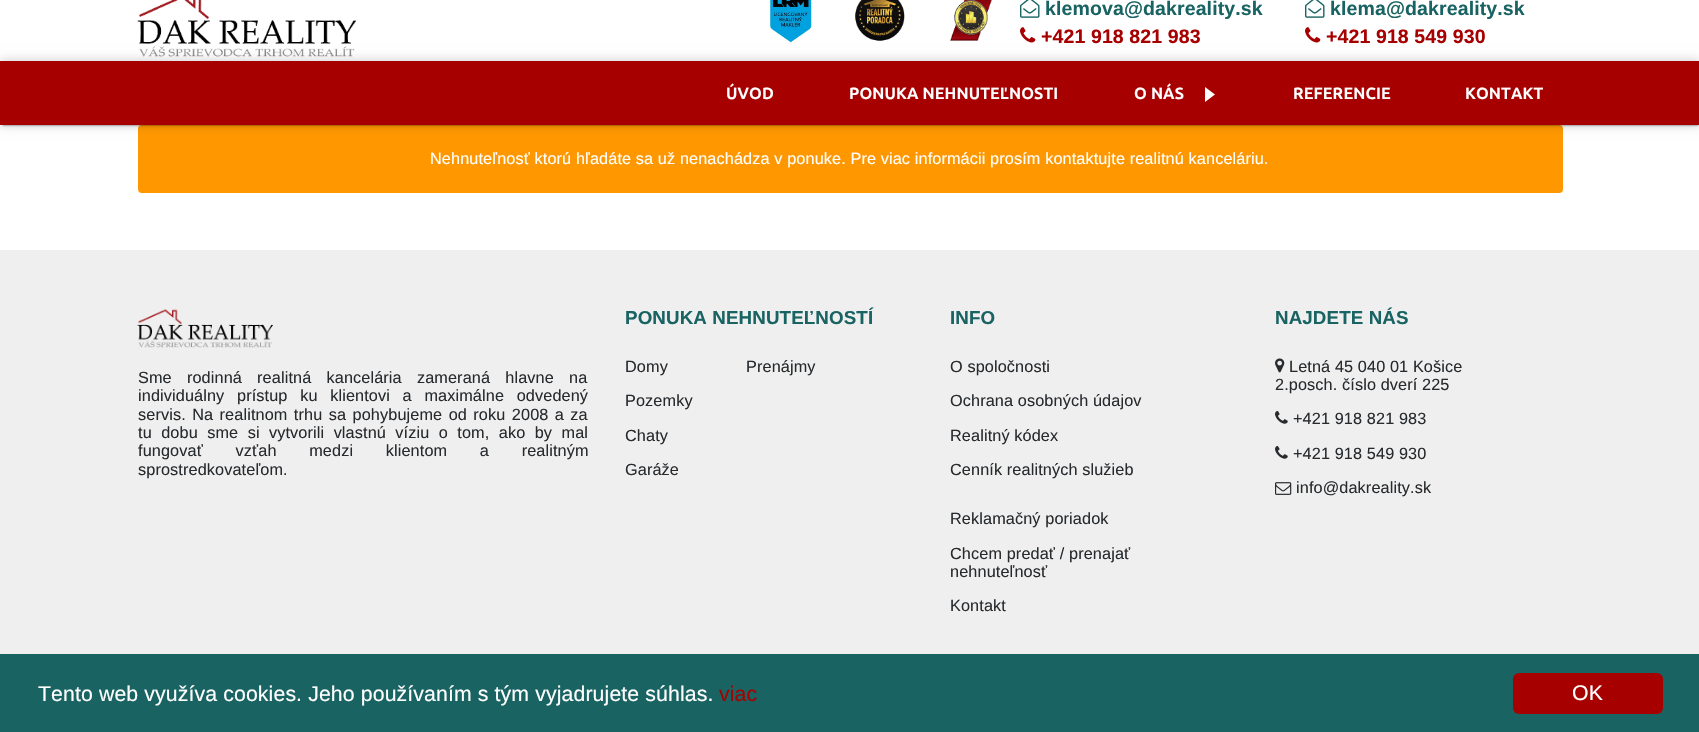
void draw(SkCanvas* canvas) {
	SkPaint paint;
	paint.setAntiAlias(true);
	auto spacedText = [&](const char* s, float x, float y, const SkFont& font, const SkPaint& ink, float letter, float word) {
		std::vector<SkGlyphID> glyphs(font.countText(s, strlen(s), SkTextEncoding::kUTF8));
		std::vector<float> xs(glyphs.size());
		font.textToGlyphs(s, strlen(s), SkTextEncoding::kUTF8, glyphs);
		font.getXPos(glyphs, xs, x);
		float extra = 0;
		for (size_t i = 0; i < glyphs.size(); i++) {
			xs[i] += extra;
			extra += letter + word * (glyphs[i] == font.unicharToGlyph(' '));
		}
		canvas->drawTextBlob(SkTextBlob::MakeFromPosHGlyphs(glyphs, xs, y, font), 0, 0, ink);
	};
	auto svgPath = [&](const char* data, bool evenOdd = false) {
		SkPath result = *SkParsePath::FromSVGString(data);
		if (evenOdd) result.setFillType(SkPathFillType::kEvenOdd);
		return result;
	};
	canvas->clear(0xffffffff);
	canvas->drawImageRect(SkImages::DeferredFromEncodedData(SkData::MakeFromFileName("img1.png")), SkRect::MakeXYWH(137, 0, 219, 57), SkSamplingOptions());
	canvas->drawImageRect(SkImages::DeferredFromEncodedData(SkData::MakeFromFileName("img2.png")), SkRect::MakeXYWH(770, 0, 42, 43), SkSamplingOptions());
	canvas->drawImageRect(SkImages::DeferredFromEncodedData(SkData::MakeFromFileName("img3.png")), SkRect::MakeXYWH(855, 0, 50, 41), SkSamplingOptions());
	canvas->drawImageRect(SkImages::DeferredFromEncodedData(SkData::MakeFromFileName("img4.png")), SkRect::MakeXYWH(950, 0, 42, 41), SkSamplingOptions());
	canvas->drawImageRect(SkImages::DeferredFromEncodedData(SkData::MakeFromFileName("img5.png")), SkRect::MakeXYWH(1020, 0, 20, 18), SkSamplingOptions());
	SkFont f1(fontMgr->matchFamilyStyle("Liberation Sans", SkFontStyle::Bold()), 19.5);
	f1.setSubpixel(true);
	paint.setColor(0xff196363);
	spacedText("klemova@dakreality.sk", 1045, 15, f1, paint, 0.12, 0);
	canvas->drawImageRect(SkImages::DeferredFromEncodedData(SkData::MakeFromFileName("img6.png")), SkRect::MakeXYWH(1020, 27, 16, 16), SkSamplingOptions());
	paint.setColor(0xffa60000);
	spacedText("+421 918 821 983", 1041, 43, f1, paint, 0.12, 0);
	canvas->drawImageRect(SkImages::DeferredFromEncodedData(SkData::MakeFromFileName("img5.png")), SkRect::MakeXYWH(1305, 0, 20, 18), SkSamplingOptions());
	paint.setColor(0xff196363);
	spacedText("klema@dakreality.sk", 1330, 15, f1, paint, 0.12, 0);
	canvas->drawImageRect(SkImages::DeferredFromEncodedData(SkData::MakeFromFileName("img6.png")), SkRect::MakeXYWH(1305, 27, 16, 16), SkSamplingOptions());
	paint.setColor(0xffa60000);
	spacedText("+421 918 549 930", 1326, 43, f1, paint, 0.12, 0);
	paint.setColor(0xffff9800);
	canvas->drawRoundRect(SkRect::MakeXYWH(138, 125, 1425, 68), 4, 4, paint);
	paint.setColor(0x33000000);
	paint.setMaskFilter(SkMaskFilter::MakeBlur(kNormal_SkBlurStyle, 0.5));
	canvas->drawRect(SkRect::MakeXYWH(3, 68, 1695, 58), paint);
	paint.setMaskFilter(nullptr);
	paint.setColor(0x1f000000);
	paint.setMaskFilter(SkMaskFilter::MakeBlur(kNormal_SkBlurStyle, 3));
	canvas->drawRect(SkRect::MakeXYWH(0, 63, 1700, 63), paint);
	paint.setMaskFilter(nullptr);
	paint.setColor(0x24000000);
	paint.setMaskFilter(SkMaskFilter::MakeBlur(kNormal_SkBlurStyle, 5.5));
	canvas->drawRect(SkRect::MakeXYWH(0, 60, 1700, 64), paint);
	paint.setMaskFilter(nullptr);
	paint.setColor(0xffa60000);
	canvas->drawRect(SkRect::MakeXYWH(0, 61, 1699, 64), paint);
	SkFont f2(fontMgr->matchFamilyStyle("Ubuntu", SkFontStyle::Bold()), 16.25);
	f2.setSubpixel(true);
	paint.setColor(0xffffffff);
	spacedText("ÚVOD", 726, 99, f2, paint, 0.12, 0);
	spacedText("PONUKA NEHNUTEĽNOSTI", 849, 99, f2, paint, 0.12, 0);
	spacedText("O NÁS", 1134, 99, f2, paint, 0.12, 0);
	canvas->drawPath(svgPath("M1205 102V87L1215 94.5Z"), paint);
	spacedText("REFERENCIE", 1293, 99, f2, paint, 0.12, 0);
	spacedText("KONTAKT", 1465, 99, f2, paint, 0.12, 0);
	SkFont f3(fontMgr->matchFamilyStyle("Liberation Sans", SkFontStyle::Normal()), 16.25);
	f3.setSubpixel(true);
	spacedText("Nehnuteľnosť ktorú hľadáte sa už nenachádza v ponuke. Pre viac informácii prosím kontaktujte realitnú kanceláriu.", 430, 164, f3, paint, 0.12, 0);
	paint.setColor(0xffefefef);
	canvas->drawRect(SkRect::MakeXYWH(0, 250, 1699, 404), paint);
	canvas->drawImageRect(SkImages::DeferredFromEncodedData(SkData::MakeFromFileName("img7.png")), SkRect::MakeXYWH(137, 309, 136, 39), SkSamplingOptions());
	paint.setColor(0xff282b2e);
	spacedText("Sme rodinná realitná kancelária zameraná hlavne na", 138, 383, f3, paint, 0.12, 10.5);
	spacedText("individuálny prístup ku klientovi a maximálne odvedený", 138, 401, f3, paint, 0.12, 8);
	spacedText("servis. Na realitnom trhu sa pohybujeme od roku 2008 a za", 138, 420, f3, paint, 0.12, 1.75);
	spacedText("tu dobu sme si vytvorili vlastnú víziu o tom, ako by mal", 138, 438, f3, paint, 0.12, 4.75);
	spacedText("fungovať vzťah medzi klientom a realitným", 138, 456, f3, paint, 0.12, 28);
	spacedText("sprostredkovateľom.", 138, 475, f3, paint, 0.12, 0);
	SkFont f4(fontMgr->matchFamilyStyle("Liberation Sans", SkFontStyle::Bold()), 18.75);
	f4.setSubpixel(true);
	paint.setColor(0xff196363);
	spacedText("PONUKA NEHNUTEĽNOSTÍ", 625, 324, f4, paint, 0.12, 0);
	paint.setColor(0xff282b2e);
	spacedText("Domy", 625, 372, f3, paint, 0.12, 0);
	spacedText("Pozemky", 625, 406, f3, paint, 0.12, 0);
	spacedText("Chaty", 625, 441, f3, paint, 0.12, 0);
	spacedText("Garáže", 625, 475, f3, paint, 0.12, 0);
	spacedText("Prenájmy", 746, 372, f3, paint, 0.12, 0);
	paint.setColor(0xff196363);
	spacedText("INFO", 950, 324, f4, paint, 0.12, 0);
	paint.setColor(0xff282b2e);
	spacedText("O spoločnosti", 950, 372, f3, paint, 0.12, 0);
	spacedText("Ochrana osobných údajov", 950, 406, f3, paint, 0.12, 0);
	spacedText("Realitný kódex", 950, 441, f3, paint, 0.12, 0);
	spacedText("Cenník realitných služieb", 950, 475, f3, paint, 0.12, 0);
	spacedText("Reklamačný poriadok", 950, 524, f3, paint, 0.12, 0);
	spacedText("Chcem predať / prenajať", 950, 559, f3, paint, 0.12, 0);
	spacedText("nehnuteľnosť", 950, 577, f3, paint, 0.12, 0);
	spacedText("Kontakt", 950, 611, f3, paint, 0.12, 0);
	paint.setColor(0xff196363);
	spacedText("NAJDETE NÁS", 1275, 324, f4, paint, 0.12, 0);
	canvas->drawImageRect(SkImages::DeferredFromEncodedData(SkData::MakeFromFileName("img8.png")), SkRect::MakeXYWH(1275, 358, 10, 15), SkSamplingOptions());
	paint.setColor(0xff282b2e);
	spacedText("Letná 45 040 01 Košice", 1289, 372, f3, paint, 0.12, 0);
	spacedText("2.posch. číslo dverí 225", 1275, 390, f3, paint, 0.12, 0);
	canvas->drawImageRect(SkImages::DeferredFromEncodedData(SkData::MakeFromFileName("img9.png")), SkRect::MakeXYWH(1275, 411, 13, 13), SkSamplingOptions());
	spacedText("+421 918 821 983", 1293, 424, f3, paint, 0.12, 0);
	canvas->drawImageRect(SkImages::DeferredFromEncodedData(SkData::MakeFromFileName("img9.png")), SkRect::MakeXYWH(1275, 446, 13, 13), SkSamplingOptions());
	spacedText("+421 918 549 930", 1293, 459, f3, paint, 0.12, 0);
	canvas->drawImageRect(SkImages::DeferredFromEncodedData(SkData::MakeFromFileName("img10.png")), SkRect::MakeXYWH(1275, 482, 17, 13), SkSamplingOptions());
	spacedText("info@dakreality.sk", 1296, 493, f3, paint, 0.12, 0);
	paint.setColor(0xff196363);
	canvas->drawRect(SkRect::MakeXYWH(0, 654, 1699, 78), paint);
	SkFont f5(fontMgr->matchFamilyStyle("Liberation Sans", SkFontStyle::Normal()), 21.25);
	f5.setSubpixel(true);
	paint.setColor(0xffffffff);
	spacedText("Tento web využíva cookies. Jeho používaním s tým vyjadrujete súhlas.", 38, 701, f5, paint, 0.12, 0);
	paint.setColor(0xffa60000);
	spacedText("viac", 719, 701, f5, paint, 0.12, 0);
	canvas->drawRoundRect(SkRect::MakeXYWH(1513, 673, 150, 41), 6, 6, paint);
	paint.setColor(0xffffffff);
	spacedText("OK", 1572, 700, f5, paint, 0.12, 0);
}
